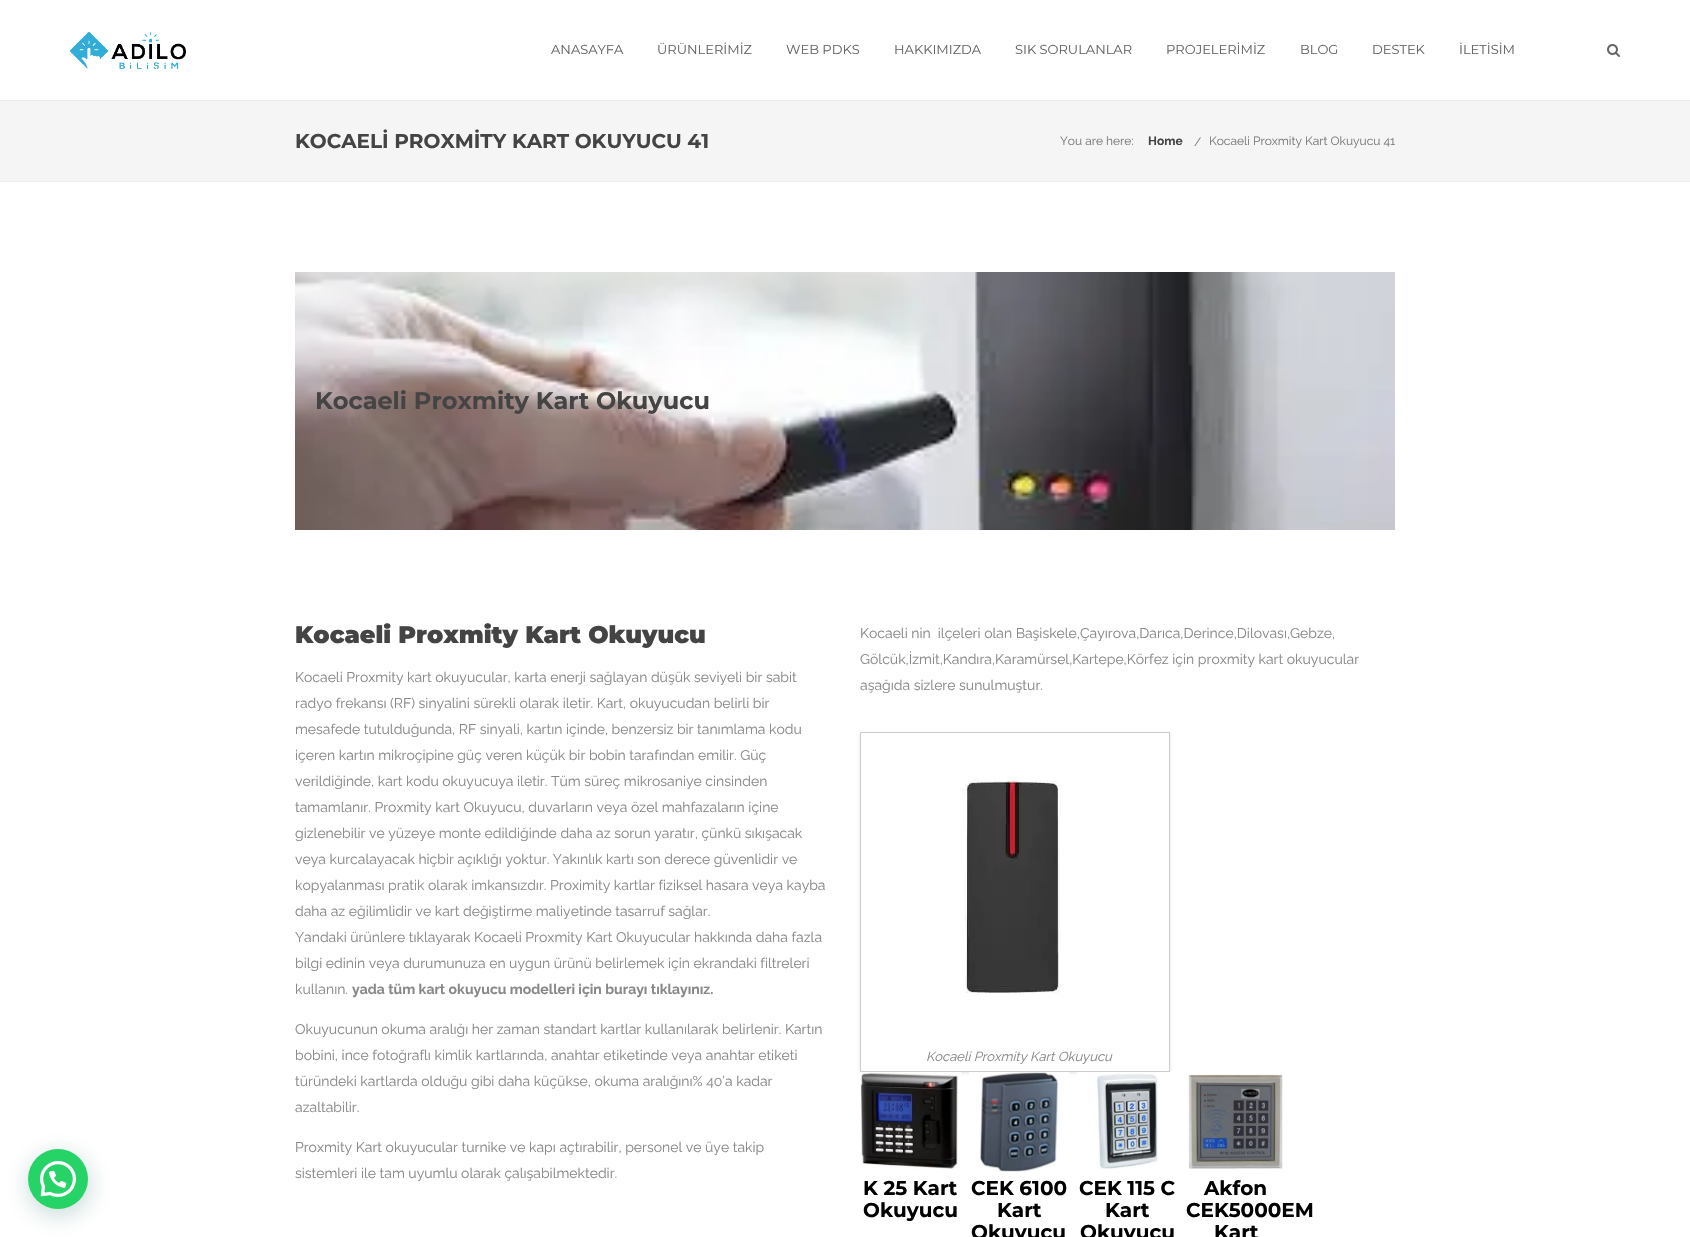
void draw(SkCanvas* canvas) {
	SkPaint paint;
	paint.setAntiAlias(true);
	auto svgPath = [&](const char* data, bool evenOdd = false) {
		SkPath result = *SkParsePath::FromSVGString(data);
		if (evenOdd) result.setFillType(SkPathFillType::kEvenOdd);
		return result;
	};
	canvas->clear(0xffffffff);
	paint.setColor(0x3d075e54);
	paint.setMaskFilter(SkMaskFilter::MakeBlur(kNormal_SkBlurStyle, 12));
	canvas->drawRoundRect(SkRect::MakeXYWH(29, 1155, 60, 60), 30, 30, paint);
	paint.setMaskFilter(nullptr);
	paint.setColor(0xff25d366);
	canvas->drawCircle(58, 1179, 30, paint);
	canvas->drawImageRect(SkImages::DeferredFromEncodedData(SkData::MakeFromFileName("img1.png")), SkRect::MakeXYWH(40, 1161, 36, 36), SkSamplingOptions());
	paint.setColor(0xffededed);
	canvas->drawRect(SkRect::MakeXYWH(0, 100, 1690, 1), paint);
	canvas->drawImageRect(SkImages::DeferredFromEncodedData(SkData::MakeFromFileName("img2.png")), SkRect::MakeXYWH(70, 32, 116, 37), SkSamplingOptions());
	SkFont f1(fontMgr->matchFamilyStyle("Montserrat", SkFontStyle::Normal()), 13);
	f1.setSubpixel(true);
	paint.setColor(0xff656565);
	canvas->drawString("ANASAYFA", 551, 54, f1, paint);
	canvas->drawString("ÜRÜNLERİMİZ", 657, 54, f1, paint);
	canvas->drawString("WEB PDKS", 786, 54, f1, paint);
	canvas->drawString("HAKKIMIZDA", 894, 54, f1, paint);
	canvas->drawString("SIK SORULANLAR", 1015, 54, f1, paint);
	canvas->drawString("PROJELERİMİZ", 1166, 54, f1, paint);
	canvas->drawString("BLOG", 1300, 54, f1, paint);
	canvas->drawString("DESTEK", 1372, 54, f1, paint);
	canvas->drawString("İLETİSİM", 1459, 54, f1, paint);
	canvas->drawImageRect(SkImages::DeferredFromEncodedData(SkData::MakeFromFileName("img3.png")), SkRect::MakeXYWH(1607, 44, 13, 13), SkSamplingOptions());
	paint.setColor(0xfff5f5f5);
	canvas->drawRect(SkRect::MakeXYWH(0, 101, 1690, 80), paint);
	paint.setColor(0xffededed);
	canvas->drawRect(SkRect::MakeXYWH(0, 181, 1690, 1), paint);
	SkFont f2(fontMgr->matchFamilyStyle("Montserrat", SkFontStyle::Bold()), 20);
	f2.setSubpixel(true);
	paint.setColor(0xff444444);
	canvas->drawString("KOCAELİ PROXMİTY KART OKUYUCU 41", 295, 148, f2, paint);
	SkFont f3(fontMgr->matchFamilyStyle("Raleway", SkFontStyle::Normal()), 12);
	f3.setSubpixel(true);
	paint.setColor(0xff797979);
	canvas->drawString("You are here:", 1060, 145, f3, paint);
	SkFont f4(fontMgr->matchFamilyStyle("Raleway", SkFontStyle::Bold()), 12);
	f4.setSubpixel(true);
	paint.setColor(0xff444444);
	canvas->drawString("Home", 1148, 145, f4, paint);
	paint.setColor(0xff797979);
	canvas->drawString("/", 1194, 146, f3, paint);
	canvas->drawString("Kocaeli Proxmity Kart Okuyucu 41", 1209, 145, f3, paint);
	canvas->drawImageRect(SkImages::DeferredFromEncodedData(SkData::MakeFromFileName("img4.png")), SkRect::MakeXYWH(295, 272, 1100, 258), SkSamplingOptions());
	SkFont f5(fontMgr->matchFamilyStyle("Montserrat", SkFontStyle::Bold()), 24);
	f5.setSubpixel(true);
	paint.setColor(0xff444444);
	canvas->drawString("Kocaeli Proxmity Kart Okuyucu", 315, 409, f5, paint);
	SkFont f6(fontMgr->matchFamilyStyle("Montserrat", SkFontStyle(900, SkFontStyle::kNormal_Width, SkFontStyle::kUpright_Slant)), 24);
	f6.setSubpixel(true);
	canvas->drawString("Kocaeli Proxmity Kart Okuyucu", 295, 643, f6, paint);
	SkFont f7(fontMgr->matchFamilyStyle("Raleway", SkFontStyle::Normal()), 14);
	f7.setSubpixel(true);
	paint.setColor(0xff888888);
	canvas->drawString("Kocaeli Proxmity kart okuyucular, karta enerji sağlayan düşük seviyeli bir sabit", 295, 682, f7, paint);
	canvas->drawString("radyo frekansı (RF) sinyalini sürekli olarak iletir. Kart, okuyucudan belirli bir", 295, 708, f7, paint);
	canvas->drawString("mesafede tutulduğunda, RF sinyali, kartın içinde, benzersiz bir tanımlama kodu", 295, 734, f7, paint);
	canvas->drawString("içeren kartın mikroçipine güç veren küçük bir bobin tarafından emilir. Güç", 295, 760, f7, paint);
	canvas->drawString("verildiğinde, kart kodu okuyucuya iletir. Tüm süreç mikrosaniye cinsinden", 295, 786, f7, paint);
	canvas->drawString("tamamlanır. Proxmity kart Okuyucu, duvarların veya özel mahfazaların içine", 295, 812, f7, paint);
	canvas->drawString("gizlenebilir ve yüzeye monte edildiğinde daha az sorun yaratır, çünkü sıkışacak", 295, 838, f7, paint);
	canvas->drawString("veya kurcalayacak hiçbir açıklığı yoktur. Yakınlık kartı son derece güvenlidir ve", 295, 864, f7, paint);
	canvas->drawString("kopyalanması pratik olarak imkansızdır. Proximity kartlar fiziksel hasara veya kayba", 295, 890, f7, paint);
	canvas->drawString("daha az eğilimlidir ve kart değiştirme maliyetinde tasarruf sağlar.", 295, 916, f7, paint);
	canvas->drawString("Yandaki ürünlere tıklayarak Kocaeli Proxmity Kart Okuyucular hakkında daha fazla", 295, 942, f7, paint);
	canvas->drawString("bilgi edinin veya durumunuza en uygun ürünü belirlemek için ekrandaki filtreleri", 295, 968, f7, paint);
	canvas->drawString("kullanın.", 295, 994, f7, paint);
	SkFont f8(fontMgr->matchFamilyStyle("Raleway", SkFontStyle::Bold()), 14);
	f8.setSubpixel(true);
	canvas->drawString("yada tüm kart okuyucu modelleri için burayı tıklayınız.", 352, 994, f8, paint);
	canvas->drawString("Okuyucunun okuma aralığı her zaman standart kartlar kullanılarak belirlenir. Kartın", 295, 1034, f7, paint);
	canvas->drawString("bobini, ince fotoğraflı kimlik kartlarında, anahtar etiketinde veya anahtar etiketi", 295, 1060, f7, paint);
	canvas->drawString("türündeki kartlarda olduğu gibi daha küçükse, okuma aralığını% 40’a kadar", 295, 1086, f7, paint);
	canvas->drawString("azaltabilir.", 295, 1112, f7, paint);
	canvas->drawString("Proxmity Kart okuyucular turnike ve kapı açtırabilir, personel ve üye takip", 295, 1152, f7, paint);
	canvas->drawString("sistemleri ile tam uyumlu olarak çalışabilmektedir.", 295, 1178, f7, paint);
	canvas->drawString("Kocaeli nin  ilçeleri olan Başiskele,Çayırova,Darıca,Derince,Dilovası,Gebze,", 860, 638, f7, paint);
	canvas->drawString("Gölcük,İzmit,Kandıra,Karamürsel,Kartepe,Körfez için proxmity kart okuyucular", 860, 664, f7, paint);
	canvas->drawString("aşağıda sizlere sunulmuştur.", 860, 690, f7, paint);
	canvas->save();
	canvas->clipPath(svgPath("M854 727H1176V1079H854ZM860 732H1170V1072H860Z", true), true);
	paint.setColor(0x1a000000);
	paint.setMaskFilter(SkMaskFilter::MakeBlur(kNormal_SkBlurStyle, 1.5));
	canvas->drawRect(SkRect::MakeXYWH(860, 733, 310, 340), paint);
	paint.setMaskFilter(nullptr);
	canvas->restore();
	paint.setStroke(true);
	paint.setStrokeWidth(1);
	paint.setColor(0xffcccccc);
	canvas->drawRect(SkRect::MakeXYWH(860.5, 732.5, 309, 339), paint);
	canvas->drawImageRect(SkImages::DeferredFromEncodedData(SkData::MakeFromFileName("img5.png")), SkRect::MakeXYWH(962, 777, 99, 216), SkSamplingOptions());
	SkFont f9(fontMgr->matchFamilyStyle("Raleway", SkFontStyle::Italic()), 13);
	f9.setSubpixel(true);
	paint.setStroke(false);
	paint.setColor(0xff888888);
	canvas->drawString("Kocaeli Proxmity Kart Okuyucu", 926, 1061, f9, paint);
	canvas->drawImageRect(SkImages::DeferredFromEncodedData(SkData::MakeFromFileName("img6.png")), SkRect::MakeXYWH(860, 1072, 101, 99), SkSamplingOptions());
	paint.setColor(0xff000000);
	canvas->drawString("K 25 Kart", 863, 1195, f2, paint);
	canvas->drawString("Okuyucu", 863, 1217, f2, paint);
	canvas->drawImageRect(SkImages::DeferredFromEncodedData(SkData::MakeFromFileName("img7.png")), SkRect::MakeXYWH(969, 1072, 100, 100), SkSamplingOptions());
	canvas->drawString("CEK 6100", 971, 1195, f2, paint);
	canvas->drawString("Kart", 997, 1217, f2, paint);
	canvas->drawString("Okuyucu", 971, 1239, f2, paint);
	canvas->drawImageRect(SkImages::DeferredFromEncodedData(SkData::MakeFromFileName("img8.png")), SkRect::MakeXYWH(1077, 1072, 94, 97), SkSamplingOptions());
	canvas->drawString("CEK 115 C", 1079, 1195, f2, paint);
	canvas->drawString("Kart", 1105, 1217, f2, paint);
	canvas->drawString("Okuyucu", 1080, 1239, f2, paint);
	canvas->drawImageRect(SkImages::DeferredFromEncodedData(SkData::MakeFromFileName("img9.png")), SkRect::MakeXYWH(1188, 1074, 96, 96), SkSamplingOptions());
	canvas->drawString("Akfon", 1204, 1195, f2, paint);
	canvas->drawString("CEK5000EM", 1186, 1217, f2, paint);
	canvas->drawString("Kart", 1214, 1239, f2, paint);
}
